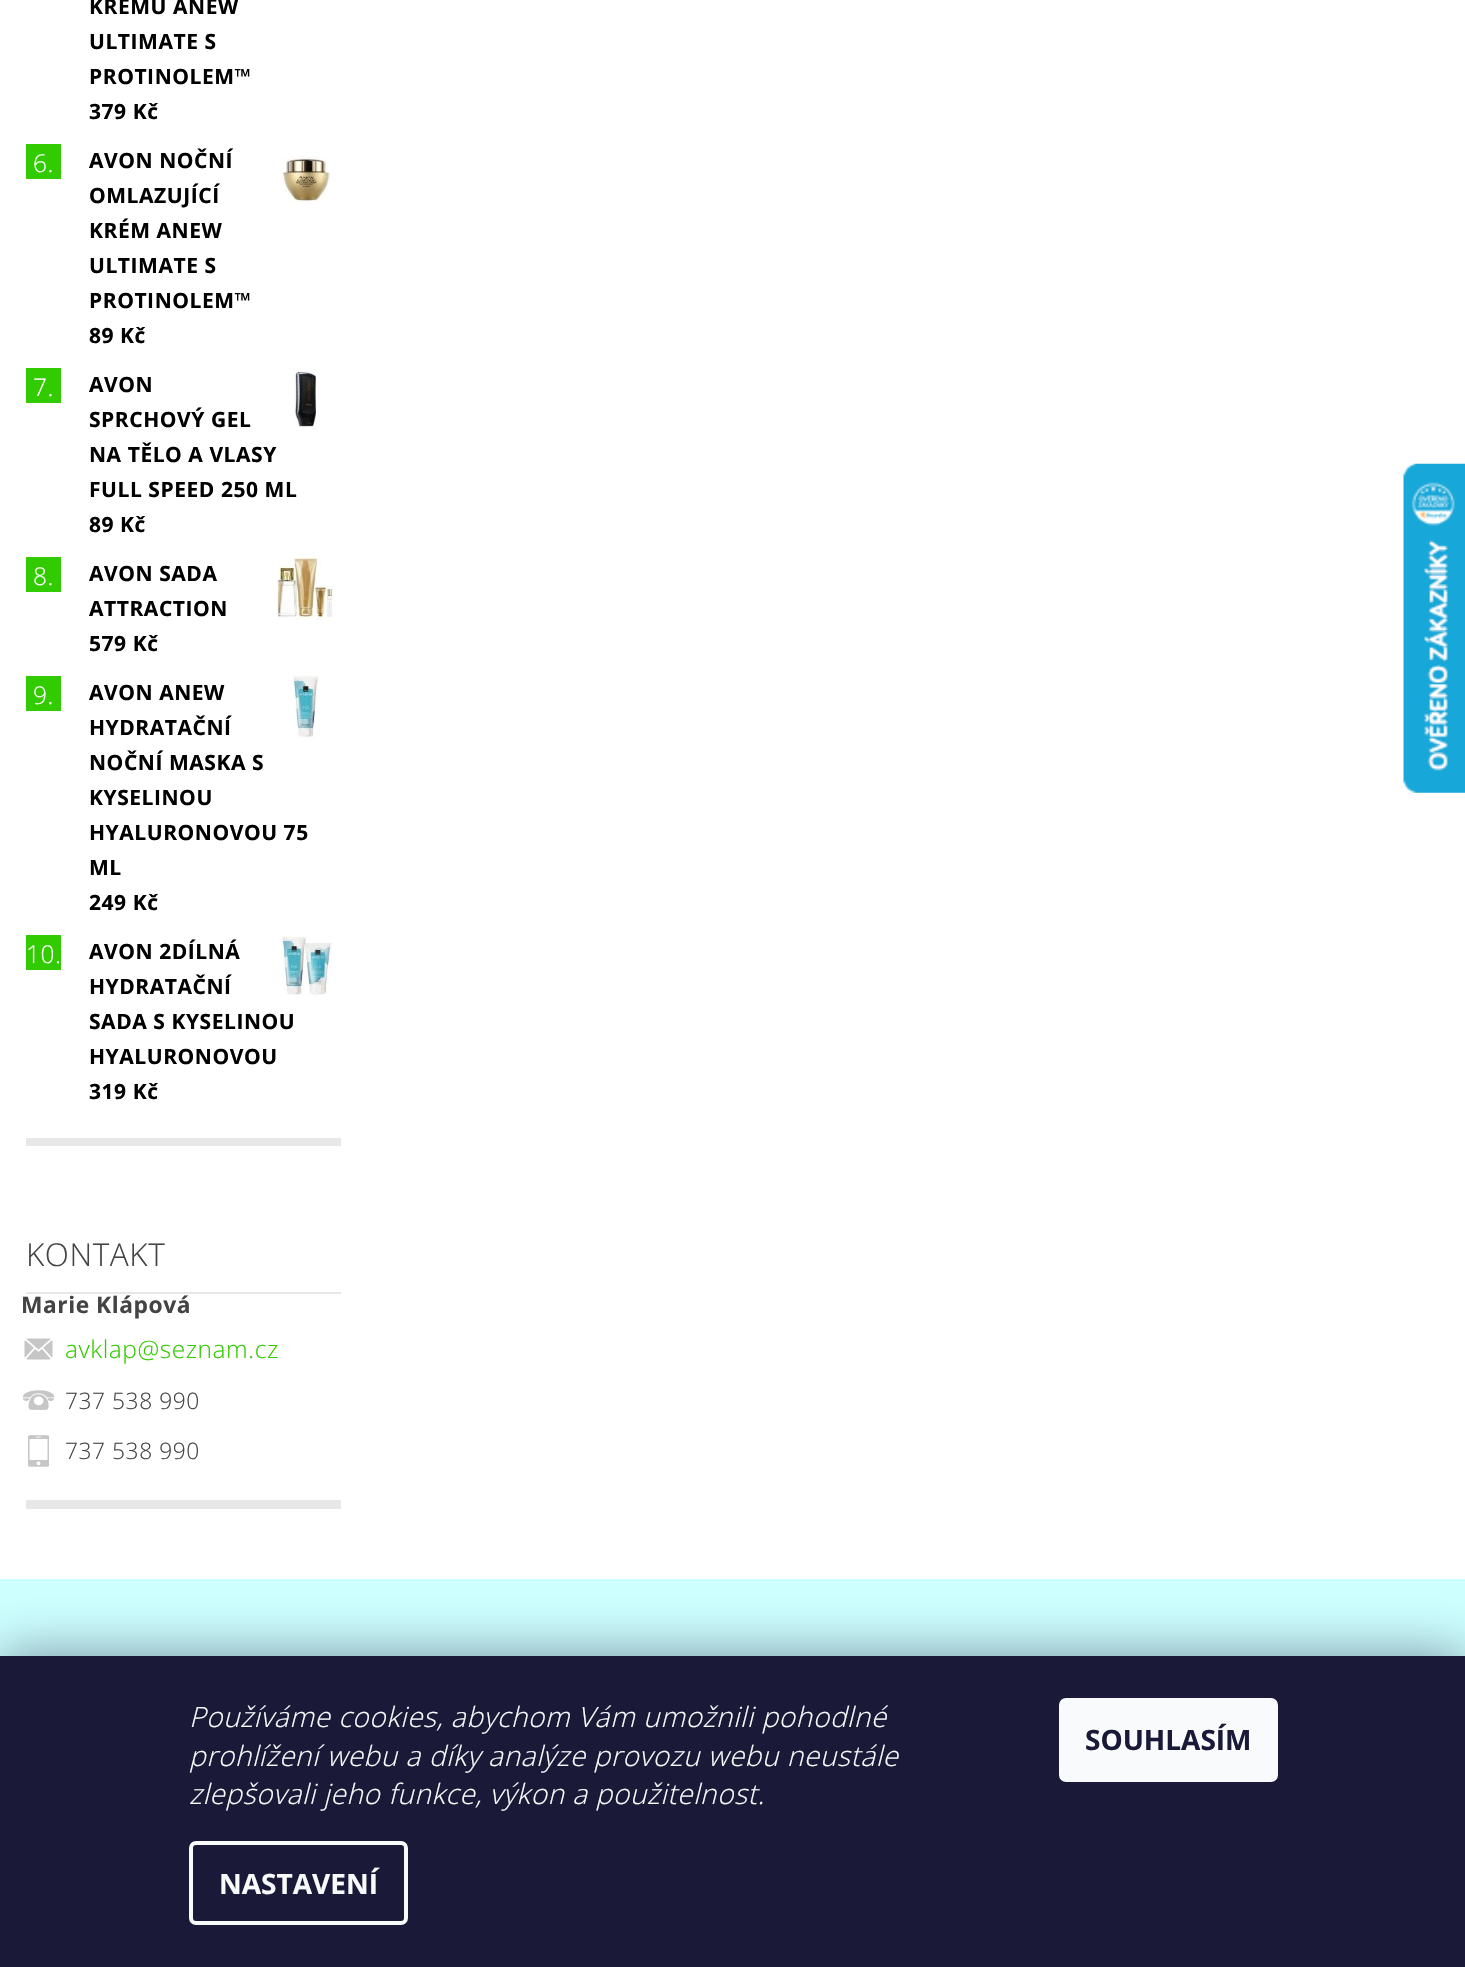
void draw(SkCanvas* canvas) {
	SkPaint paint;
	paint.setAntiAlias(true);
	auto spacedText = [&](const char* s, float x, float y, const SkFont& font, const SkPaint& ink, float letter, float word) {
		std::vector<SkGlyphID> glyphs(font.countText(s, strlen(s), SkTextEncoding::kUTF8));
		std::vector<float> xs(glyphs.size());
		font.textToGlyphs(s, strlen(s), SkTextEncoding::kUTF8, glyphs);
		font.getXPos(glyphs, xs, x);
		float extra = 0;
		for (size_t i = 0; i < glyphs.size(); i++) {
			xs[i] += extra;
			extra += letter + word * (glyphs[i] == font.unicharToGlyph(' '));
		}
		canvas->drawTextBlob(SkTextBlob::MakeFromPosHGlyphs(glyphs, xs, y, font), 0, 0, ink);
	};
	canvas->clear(0xffcdffff);
	paint.setColor(0xffffffff);
	canvas->drawRect(SkRect::MakeXYWH(0, 0, 1465, 1579), paint);
	paint.setColor(0xffe7e7e7);
	canvas->drawRect(SkRect::MakeXYWH(26, 1138, 315, 8), paint);
	SkFont f1(fontMgr->matchFamilyStyle("Open Sans", SkFontStyle::Bold()), 21);
	f1.setSubpixel(true);
	paint.setColor(0xff000000);
	spacedText("KRÉMŮ ANEW", 89, 14, f1, paint, 0.55, 0);
	spacedText("ULTIMATE S", 89, 49, f1, paint, 0.55, 0);
	spacedText("PROTINOLEM™", 89, 84, f1, paint, 0.55, 0);
	spacedText("379 Kč", 89, 119, f1, paint, 0.55, 0);
	paint.setColor(0xff32cb00);
	canvas->drawRect(SkRect::MakeXYWH(26, 144, 35, 35), paint);
	SkFont f2(fontMgr->matchFamilyStyle("Open Sans", SkFontStyle(300, SkFontStyle::kNormal_Width, SkFontStyle::kUpright_Slant)), 24.5);
	f2.setSubpixel(true);
	paint.setColor(0xffffffff);
	spacedText("6.", 33, 172, f2, paint, 0.55, 0);
	paint.setColor(0xff000000);
	spacedText("AVON NOČNÍ", 89, 168, f1, paint, 0.55, 0);
	spacedText("OMLAZUJÍCÍ", 89, 203, f1, paint, 0.55, 0);
	spacedText("KRÉM ANEW", 89, 238, f1, paint, 0.55, 0);
	spacedText("ULTIMATE S", 89, 273, f1, paint, 0.55, 0);
	spacedText("PROTINOLEM™", 89, 308, f1, paint, 0.55, 0);
	spacedText("89 Kč", 89, 343, f1, paint, 0.55, 0);
	canvas->drawImageRect(SkImages::DeferredFromEncodedData(SkData::MakeFromFileName("img1.png")), SkRect::MakeXYWH(282, 156, 48, 46), SkSamplingOptions());
	paint.setColor(0xff32cb00);
	canvas->drawRect(SkRect::MakeXYWH(26, 368, 35, 35), paint);
	paint.setColor(0xffffffff);
	spacedText("7.", 33, 396, f2, paint, 0.55, 0);
	paint.setColor(0xff000000);
	spacedText("AVON", 89, 392, f1, paint, 0.55, 0);
	spacedText("SPRCHOVÝ GEL", 89, 427, f1, paint, 0.55, 0);
	spacedText("NA TĚLO A VLASY", 89, 462, f1, paint, 0.55, 0);
	spacedText("FULL SPEED 250 ML", 89, 497, f1, paint, 0.55, 0);
	spacedText("89 Kč", 89, 532, f1, paint, 0.55, 0);
	canvas->drawImageRect(SkImages::DeferredFromEncodedData(SkData::MakeFromFileName("img2.png")), SkRect::MakeXYWH(293, 369, 23, 61), SkSamplingOptions());
	paint.setColor(0xff32cb00);
	canvas->drawRect(SkRect::MakeXYWH(26, 557, 35, 35), paint);
	paint.setColor(0xffffffff);
	spacedText("8.", 33, 585, f2, paint, 0.55, 0);
	paint.setColor(0xff000000);
	spacedText("AVON SADA", 89, 581, f1, paint, 0.55, 0);
	spacedText("ATTRACTION", 89, 616, f1, paint, 0.55, 0);
	spacedText("579 Kč", 89, 651, f1, paint, 0.55, 0);
	canvas->drawImageRect(SkImages::DeferredFromEncodedData(SkData::MakeFromFileName("img3.png")), SkRect::MakeXYWH(275, 552, 58, 68), SkSamplingOptions());
	canvas->drawImageRect(SkImages::DeferredFromEncodedData(SkData::MakeFromFileName("img4.png")), SkRect::MakeXYWH(293, 672, 26, 67), SkSamplingOptions());
	paint.setColor(0xff32cb00);
	canvas->drawRect(SkRect::MakeXYWH(26, 676, 35, 35), paint);
	paint.setColor(0xffffffff);
	spacedText("9.", 33, 704, f2, paint, 0.55, 0);
	paint.setColor(0xff000000);
	spacedText("AVON ANEW", 89, 700, f1, paint, 0.55, 0);
	spacedText("HYDRATAČNÍ", 89, 735, f1, paint, 0.55, 0);
	spacedText("NOČNÍ MASKA S", 89, 770, f1, paint, 0.55, 0);
	spacedText("KYSELINOU", 89, 805, f1, paint, 0.55, 0);
	spacedText("HYALURONOVOU 75", 89, 840, f1, paint, 0.55, 0);
	spacedText("ML", 89, 875, f1, paint, 0.55, 0);
	spacedText("249 Kč", 89, 910, f1, paint, 0.55, 0);
	paint.setColor(0xff32cb00);
	canvas->drawRect(SkRect::MakeXYWH(26, 935, 35, 35), paint);
	paint.setColor(0xffffffff);
	spacedText("10.", 26, 963, f2, paint, 0.55, 0);
	paint.setColor(0xff000000);
	spacedText("AVON 2DÍLNÁ", 89, 959, f1, paint, 0.55, 0);
	spacedText("HYDRATAČNÍ", 89, 994, f1, paint, 0.55, 0);
	spacedText("SADA S KYSELINOU", 89, 1029, f1, paint, 0.55, 0);
	spacedText("HYALURONOVOU", 89, 1064, f1, paint, 0.55, 0);
	spacedText("319 Kč", 89, 1099, f1, paint, 0.55, 0);
	canvas->drawImageRect(SkImages::DeferredFromEncodedData(SkData::MakeFromFileName("img5.png")), SkRect::MakeXYWH(282, 936, 51, 59), SkSamplingOptions());
	paint.setColor(0xffe7e7e7);
	canvas->drawRect(SkRect::MakeXYWH(26, 1500, 315, 9), paint);
	canvas->drawRect(SkRect::MakeXYWH(26, 1292, 315, 2), paint);
	SkFont f3(fontMgr->matchFamilyStyle("Open Sans", SkFontStyle(300, SkFontStyle::kNormal_Width, SkFontStyle::kUpright_Slant)), 31.5);
	f3.setSubpixel(true);
	paint.setColor(0xff444444);
	spacedText("KONTAKT", 26, 1266, f3, paint, 0.55, 0);
	SkFont f4(fontMgr->matchFamilyStyle("Open Sans", SkFontStyle::Bold()), 22.75);
	f4.setSubpixel(true);
	spacedText("Marie Klápová", 21, 1313, f4, paint, 0.55, 0);
	canvas->drawImageRect(SkImages::DeferredFromEncodedData(SkData::MakeFromFileName("img6.png")), SkRect::MakeXYWH(24, 1338, 29, 22), SkSamplingOptions());
	paint.setColor(0xff32cb00);
	spacedText("avklap@seznam.cz", 65, 1358, f2, paint, 0.55, 0);
	canvas->drawImageRect(SkImages::DeferredFromEncodedData(SkData::MakeFromFileName("img7.png")), SkRect::MakeXYWH(22, 1390, 33, 20), SkSamplingOptions());
	SkFont f5(fontMgr->matchFamilyStyle("Open Sans", SkFontStyle(300, SkFontStyle::kNormal_Width, SkFontStyle::kUpright_Slant)), 22.75);
	f5.setSubpixel(true);
	paint.setColor(0xff444444);
	spacedText("737 538 990", 65, 1409, f5, paint, 0.55, 0);
	canvas->drawImageRect(SkImages::DeferredFromEncodedData(SkData::MakeFromFileName("img8.png")), SkRect::MakeXYWH(28, 1435, 21, 32), SkSamplingOptions());
	spacedText("737 538 990", 65, 1459, f5, paint, 0.55, 0);
	canvas->drawImageRect(SkImages::DeferredFromEncodedData(SkData::MakeFromFileName("img9.png")), SkRect::MakeXYWH(1403, 463, 62, 330), SkSamplingOptions());
	paint.setColor(0x801b1939);
	paint.setMaskFilter(SkMaskFilter::MakeBlur(kNormal_SkBlurStyle, 26));
	canvas->drawRect(SkRect::MakeXYWH(0, 1656, 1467, 311), paint);
	paint.setMaskFilter(nullptr);
	paint.setColor(0xff1a1937);
	canvas->drawRect(SkRect::MakeXYWH(0, 1656, 1465, 311), paint);
	SkFont f6(fontMgr->matchFamilyStyle("Open Sans", SkFontStyle(300, SkFontStyle::kNormal_Width, SkFontStyle::kItalic_Slant)), 28);
	f6.setSubpixel(true);
	paint.setColor(0xfff8fafb);
	spacedText("Používáme cookies, abychom Vám umožnili pohodlné", 189, 1727, f6, paint, 0.55, 0);
	spacedText("prohlížení webu a díky analýze provozu webu neustále", 189, 1766, f6, paint, 0.55, 0);
	spacedText("zlepšovali jeho funkce, výkon a použitelnost.", 189, 1804, f6, paint, 0.55, 0);
	paint.setStroke(true);
	paint.setStrokeWidth(4);
	canvas->drawRoundRect(SkRect::MakeXYWH(191, 1843, 215, 80), 5, 5, paint);
	SkFont f7(fontMgr->matchFamilyStyle("Open Sans", SkFontStyle::Bold()), 28);
	f7.setSubpixel(true);
	paint.setStroke(false);
	canvas->drawString("NASTAVENÍ", 219, 1894, f7, paint);
	canvas->drawRoundRect(SkRect::MakeXYWH(1059, 1698, 219, 84), 7, 7, paint);
	paint.setColor(0xff1a1937);
	canvas->drawString("SOUHLASÍM", 1085, 1750, f7, paint);
}
